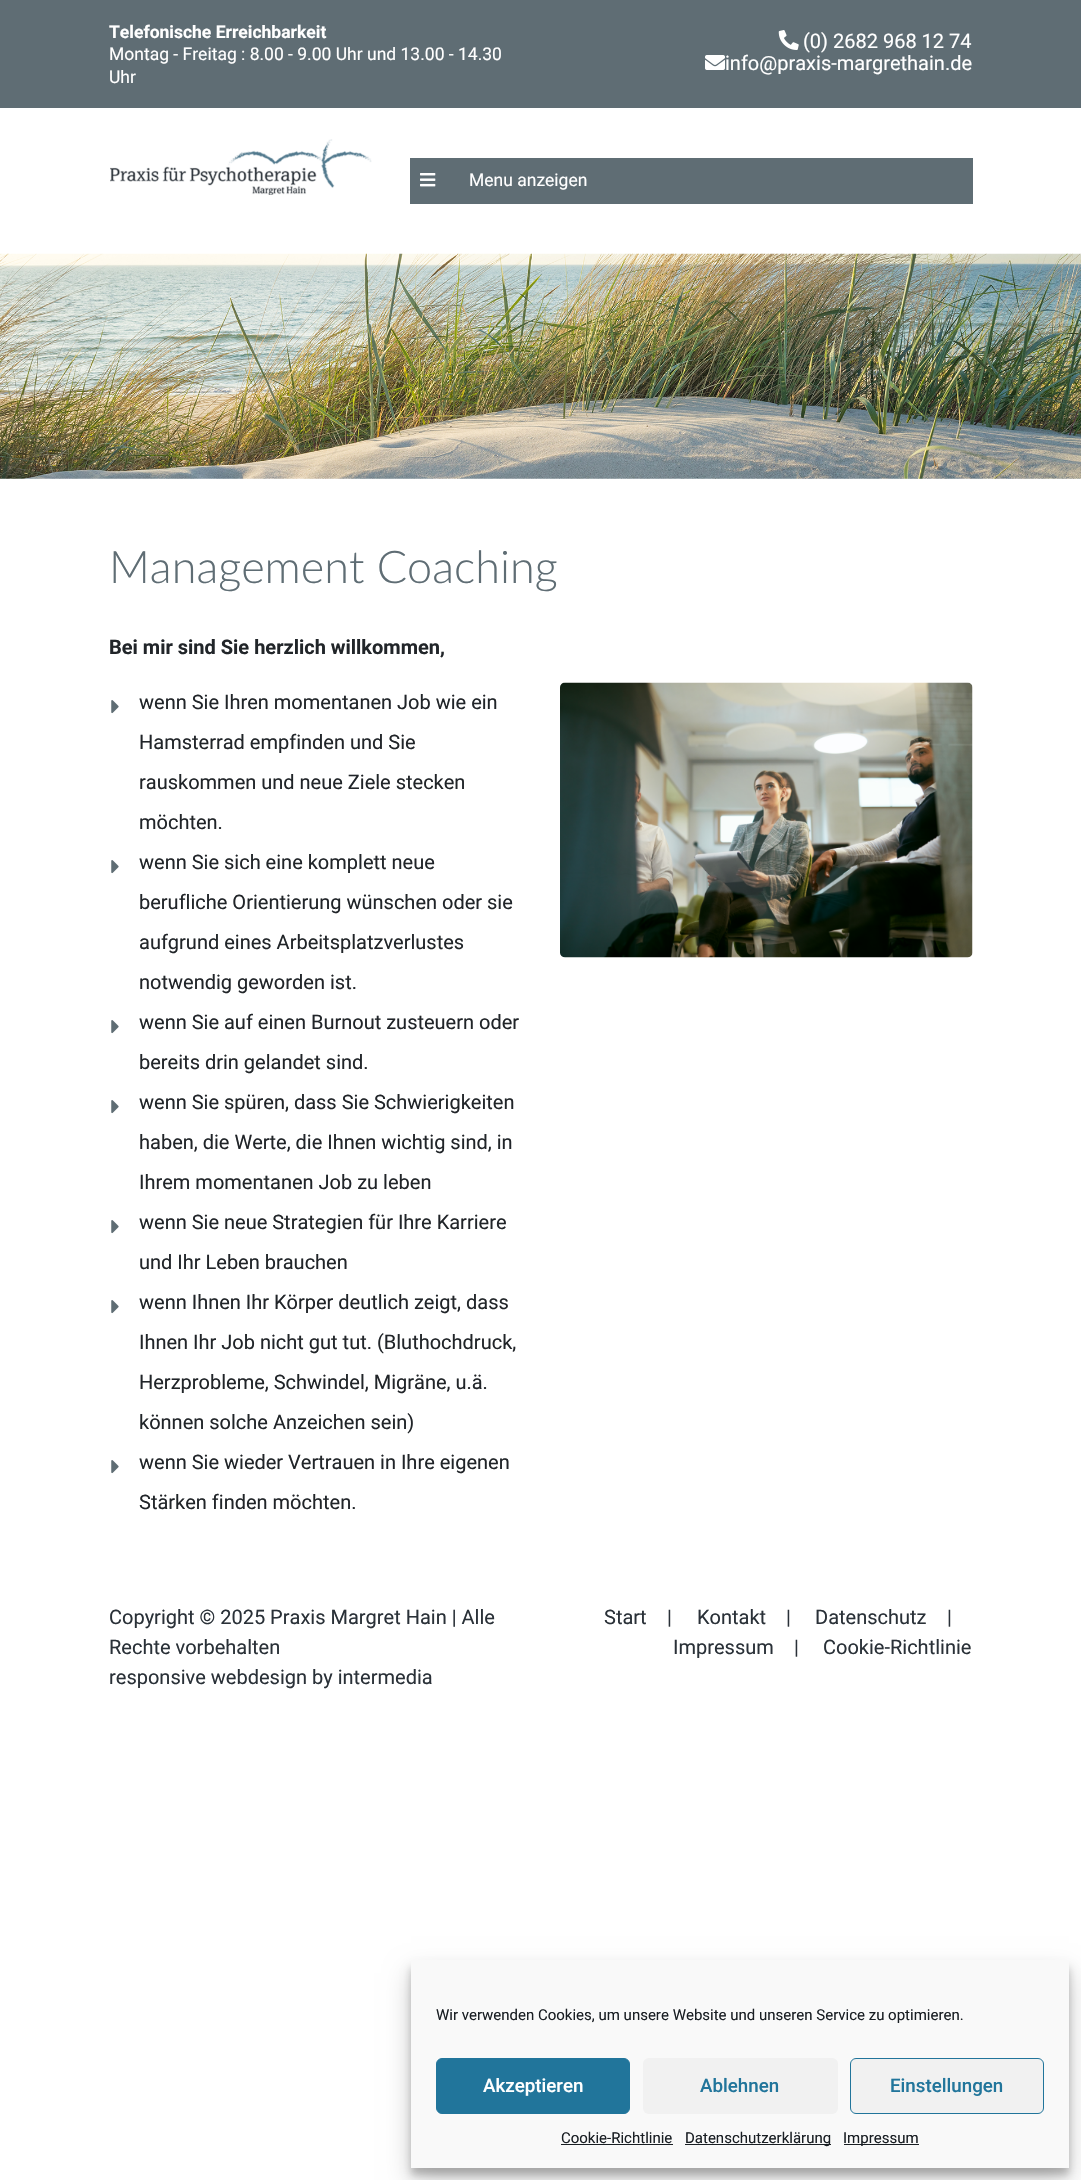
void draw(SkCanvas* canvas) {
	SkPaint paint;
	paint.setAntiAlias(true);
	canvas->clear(0xffffffff);
	paint.setColor(0xff5f6d74);
	canvas->drawRect(SkRect::MakeXYWH(0, 0, 1081, 108), paint);
	SkFont f1(fontMgr->matchFamilyStyle("Roboto", SkFontStyle::Bold()), 17.5);
	f1.setSubpixel(true);
	paint.setColor(0xffffffff);
	canvas->drawString("Telefonische Erreichbarkeit", 109, 38, f1, paint);
	SkFont f2(fontMgr->matchFamilyStyle("Roboto", SkFontStyle::Normal()), 17.5);
	f2.setSubpixel(true);
	canvas->drawString("Montag - Freitag : 8.00 - 9.00 Uhr und 13.00 - 14.30", 109, 60, f2, paint);
	canvas->drawString("Uhr", 109, 83, f2, paint);
	canvas->drawImageRect(SkImages::DeferredFromEncodedData(SkData::MakeFromFileName("img1.png")), SkRect::MakeXYWH(778, 30, 21, 20), SkSamplingOptions());
	SkFont f3(fontMgr->matchFamilyStyle("Roboto", SkFontStyle::Normal()), 20);
	f3.setSubpixel(true);
	canvas->drawString("(0) 2682 968 12 74", 803, 48, f3, paint);
	canvas->drawImageRect(SkImages::DeferredFromEncodedData(SkData::MakeFromFileName("img2.png")), SkRect::MakeXYWH(705, 55, 20, 15), SkSamplingOptions());
	canvas->drawString("info@praxis-margrethain.de", 725, 70, f3, paint);
	canvas->drawImageRect(SkImages::DeferredFromEncodedData(SkData::MakeFromFileName("img3.png")), SkRect::MakeXYWH(110, 139, 262, 56), SkSamplingOptions());
	paint.setColor(0xff5f6d74);
	canvas->drawRect(SkRect::MakeXYWH(410, 158, 563, 46), paint);
	canvas->drawImageRect(SkImages::DeferredFromEncodedData(SkData::MakeFromFileName("img4.png")), SkRect::MakeXYWH(420, 173, 16, 14), SkSamplingOptions());
	paint.setColor(0xffffffff);
	canvas->drawString("Menu anzeigen", 469, 186, f2, paint);
	canvas->drawImageRect(SkImages::DeferredFromEncodedData(SkData::MakeFromFileName("img5.png")), SkRect::MakeXYWH(0, 253, 1081, 226), SkSamplingOptions());
	SkFont f4(fontMgr->matchFamilyStyle("Lato", SkFontStyle(300, SkFontStyle::kNormal_Width, SkFontStyle::kUpright_Slant)), 45);
	f4.setSubpixel(true);
	paint.setColor(0xff5f6d74);
	canvas->drawString("Management Coaching", 109, 583, f4, paint);
	SkFont f5(fontMgr->matchFamilyStyle("Roboto", SkFontStyle::Bold()), 20);
	f5.setSubpixel(true);
	paint.setColor(0xff212529);
	canvas->drawString("Bei mir sind Sie herzlich willkommen,", 109, 654, f5, paint);
	canvas->drawImageRect(SkImages::DeferredFromEncodedData(SkData::MakeFromFileName("img6.png")), SkRect::MakeXYWH(111, 700, 8, 14), SkSamplingOptions());
	canvas->drawString("wenn Sie Ihren momentanen Job wie ein", 139, 709, f3, paint);
	canvas->drawString("Hamsterrad empfinden und Sie", 139, 749, f3, paint);
	canvas->drawString("rauskommen und neue Ziele stecken", 139, 789, f3, paint);
	canvas->drawString("möchten.", 139, 829, f3, paint);
	canvas->drawImageRect(SkImages::DeferredFromEncodedData(SkData::MakeFromFileName("img6.png")), SkRect::MakeXYWH(111, 860, 8, 14), SkSamplingOptions());
	canvas->drawString("wenn Sie sich eine komplett neue", 139, 869, f3, paint);
	canvas->drawString("berufliche Orientierung wünschen oder sie", 139, 909, f3, paint);
	canvas->drawString("aufgrund eines Arbeitsplatzverlustes", 139, 949, f3, paint);
	canvas->drawString("notwendig geworden ist.", 139, 989, f3, paint);
	canvas->drawImageRect(SkImages::DeferredFromEncodedData(SkData::MakeFromFileName("img6.png")), SkRect::MakeXYWH(111, 1020, 8, 14), SkSamplingOptions());
	canvas->drawString("wenn Sie auf einen Burnout zusteuern oder", 139, 1029, f3, paint);
	canvas->drawString("bereits drin gelandet sind.", 139, 1069, f3, paint);
	canvas->drawImageRect(SkImages::DeferredFromEncodedData(SkData::MakeFromFileName("img6.png")), SkRect::MakeXYWH(111, 1100, 8, 14), SkSamplingOptions());
	canvas->drawString("wenn Sie spüren, dass Sie Schwierigkeiten", 139, 1109, f3, paint);
	canvas->drawString("haben, die Werte, die Ihnen wichtig sind, in", 139, 1149, f3, paint);
	canvas->drawString("Ihrem momentanen Job zu leben", 139, 1189, f3, paint);
	canvas->drawImageRect(SkImages::DeferredFromEncodedData(SkData::MakeFromFileName("img6.png")), SkRect::MakeXYWH(111, 1220, 8, 14), SkSamplingOptions());
	canvas->drawString("wenn Sie neue Strategien für Ihre Karriere", 139, 1229, f3, paint);
	canvas->drawString("und Ihr Leben brauchen", 139, 1269, f3, paint);
	canvas->drawImageRect(SkImages::DeferredFromEncodedData(SkData::MakeFromFileName("img6.png")), SkRect::MakeXYWH(111, 1300, 8, 14), SkSamplingOptions());
	canvas->drawString("wenn Ihnen Ihr Körper deutlich zeigt, dass", 139, 1309, f3, paint);
	canvas->drawString("Ihnen Ihr Job nicht gut tut. (Bluthochdruck,", 139, 1349, f3, paint);
	canvas->drawString("Herzprobleme, Schwindel, Migräne, u.ä.", 139, 1389, f3, paint);
	canvas->drawString("können solche Anzeichen sein)", 139, 1429, f3, paint);
	canvas->drawImageRect(SkImages::DeferredFromEncodedData(SkData::MakeFromFileName("img6.png")), SkRect::MakeXYWH(111, 1460, 8, 14), SkSamplingOptions());
	canvas->drawString("wenn Sie wieder Vertrauen in Ihre eigenen", 139, 1469, f3, paint);
	canvas->drawString("Stärken finden möchten.", 139, 1509, f3, paint);
	canvas->drawImageRect(SkImages::DeferredFromEncodedData(SkData::MakeFromFileName("img7.png")), SkRect::MakeXYWH(560, 682, 413, 276), SkSamplingOptions());
	paint.setColor(0xff2a3138);
	canvas->drawString("Copyright © 2025 Praxis Margret Hain | Alle", 109, 1624, f3, paint);
	canvas->drawString("Rechte vorbehalten", 109, 1654, f3, paint);
	canvas->drawString("responsive webdesign by intermedia", 109, 1684, f3, paint);
	canvas->drawString("Start", 604, 1624, f3, paint);
	canvas->drawString("|", 667, 1624, f3, paint);
	canvas->drawString("Kontakt", 697, 1624, f3, paint);
	canvas->drawString("|", 786, 1624, f3, paint);
	canvas->drawString("Datenschutz", 815, 1624, f3, paint);
	canvas->drawString("|", 947, 1624, f3, paint);
	canvas->drawString("Impressum", 673, 1654, f3, paint);
	canvas->drawString("|", 794, 1654, f3, paint);
	canvas->drawString("Cookie-Richtlinie", 823, 1654, f3, paint);
	paint.setColor(0x3b000000);
	paint.setMaskFilter(SkMaskFilter::MakeBlur(kNormal_SkBlurStyle, 4));
	canvas->drawRect(SkRect::MakeXYWH(411, 1968, 658, 207), paint);
	paint.setMaskFilter(nullptr);
	paint.setColor(0x30000000);
	paint.setMaskFilter(SkMaskFilter::MakeBlur(kNormal_SkBlurStyle, 12.5));
	canvas->drawRect(SkRect::MakeXYWH(411, 1973, 658, 207), paint);
	paint.setMaskFilter(nullptr);
	paint.setColor(0xfff9f9f9);
	canvas->drawRect(SkRect::MakeXYWH(411, 1960, 658, 208), paint);
	SkFont f6(fontMgr->matchFamilyStyle("Roboto", SkFontStyle::Normal()), 15);
	f6.setSubpixel(true);
	paint.setColor(0xff191e23);
	canvas->drawString("Wir verwenden Cookies, um unsere Website und unseren Service zu optimieren.", 436, 2020, f6, paint);
	paint.setColor(0xff21759b);
	canvas->drawRoundRect(SkRect::MakeXYWH(436.5, 2058.5, 193, 55), 5.5, 5.5, paint);
	paint.setStroke(true);
	paint.setStrokeWidth(1);
	canvas->drawRoundRect(SkRect::MakeXYWH(436.5, 2058.5, 193, 55), 5.5, 5.5, paint);
	SkFont f7(fontMgr->matchFamilyStyle("Roboto", SkFontStyle(500, SkFontStyle::kNormal_Width, SkFontStyle::kUpright_Slant)), 18.75);
	f7.setSubpixel(true);
	paint.setStroke(false);
	paint.setColor(0xffffffff);
	canvas->drawString("Akzeptieren", 483, 2092, f7, paint);
	paint.setColor(0xfff1f1f1);
	canvas->drawRoundRect(SkRect::MakeXYWH(643, 2058, 195, 56), 6, 6, paint);
	paint.setColor(0xff21759b);
	canvas->drawString("Ablehnen", 700, 2092, f7, paint);
	paint.setColor(0xfff1f1f1);
	canvas->drawRoundRect(SkRect::MakeXYWH(850.5, 2058.5, 193, 55), 5.5, 5.5, paint);
	paint.setStroke(true);
	paint.setColor(0xff21759b);
	canvas->drawRoundRect(SkRect::MakeXYWH(850.5, 2058.5, 193, 55), 5.5, 5.5, paint);
	paint.setStroke(false);
	canvas->drawString("Einstellungen", 890, 2092, f7, paint);
	paint.setColor(0xff191e23);
	canvas->drawString("Cookie-Richtlinie", 561, 2143, f6, paint);
	canvas->drawRect(SkRect::MakeXYWH(561, 2144, 112, 1), paint);
	canvas->drawRect(SkRect::MakeXYWH(685, 2144, 146, 1), paint);
	canvas->drawString("Datenschutzerklärung", 685, 2143, f6, paint);
	canvas->drawRect(SkRect::MakeXYWH(844, 2144, 75, 1), paint);
	canvas->drawString("Impressum", 843, 2143, f6, paint);
}
